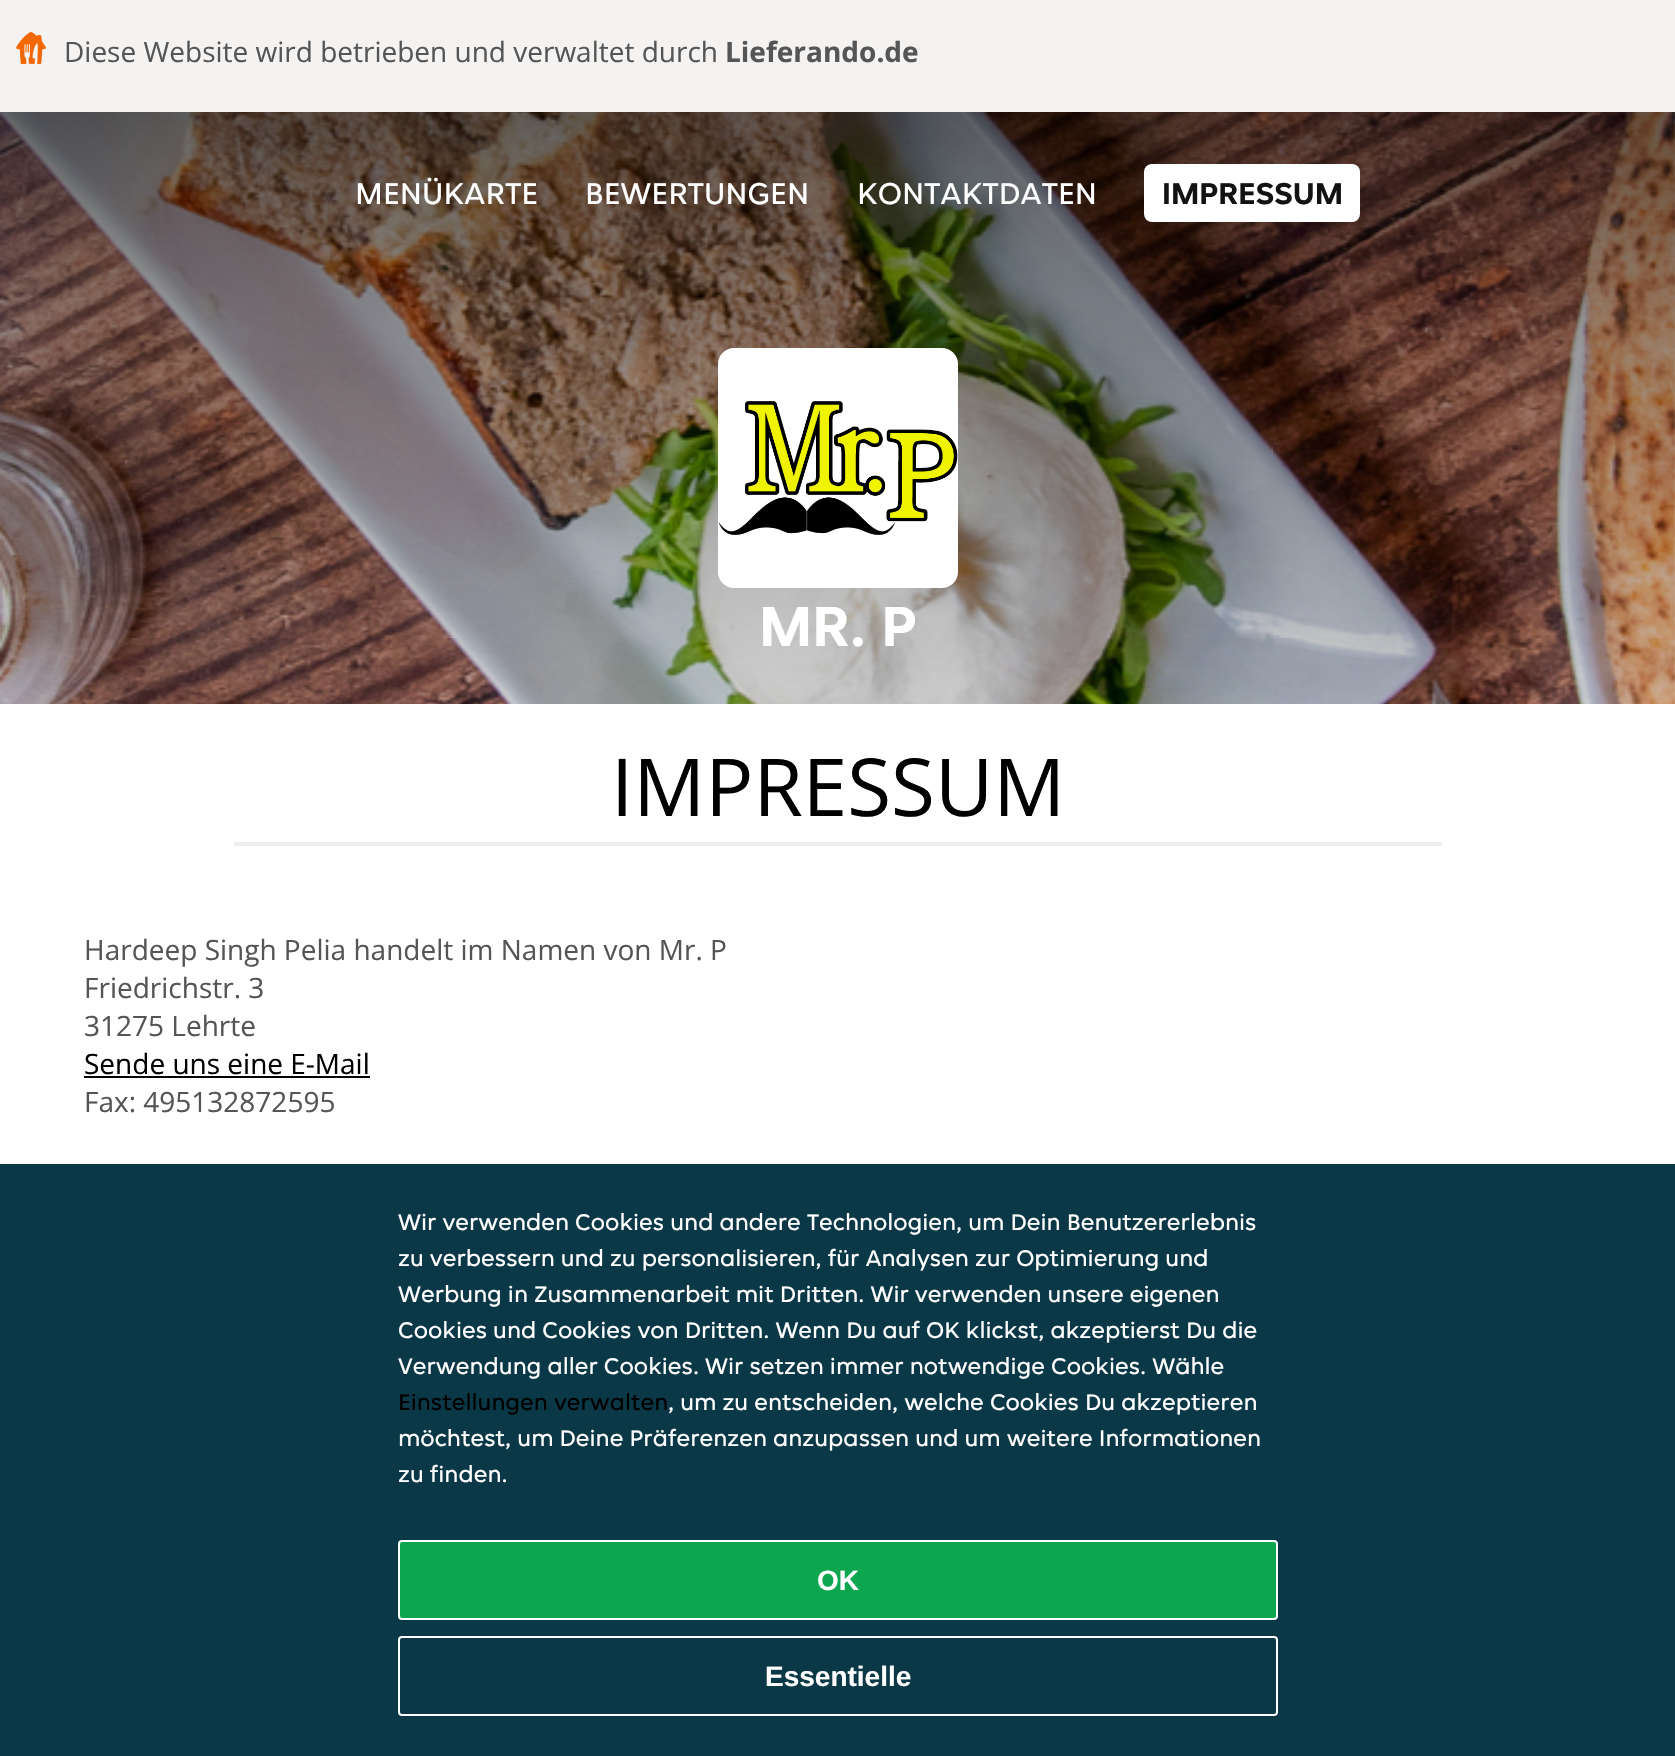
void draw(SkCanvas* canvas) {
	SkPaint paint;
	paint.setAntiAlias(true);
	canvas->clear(0xffffffff);
	paint.setColor(0xfff5f3f1);
	canvas->drawRect(SkRect::MakeXYWH(0, 0, 1675, 112), paint);
	canvas->drawImageRect(SkImages::DeferredFromEncodedData(SkData::MakeFromFileName("img1.png")), SkRect::MakeXYWH(16, 32, 30, 32), SkSamplingOptions());
	SkFont f1(fontMgr->matchFamilyStyle("Open Sans", SkFontStyle::Normal()), 28);
	f1.setSubpixel(true);
	paint.setColor(0xff555555);
	canvas->drawString("Diese Website wird betrieben und verwaltet durch", 64, 62, f1, paint);
	SkFont f2(fontMgr->matchFamilyStyle("Open Sans", SkFontStyle::Bold()), 28);
	f2.setSubpixel(true);
	canvas->drawString("Lieferando.de", 725, 62, f2, paint);
	canvas->drawImageRect(SkImages::DeferredFromEncodedData(SkData::MakeFromFileName("img2.png")), SkRect::MakeXYWH(0, 112, 1675, 592), SkSamplingOptions());
	{
		const SkColor colors[] = {0xb3000000, 0x66000000, 0x33000000, 0x00000000};
		const float stops[] = {0, 0.33, 0.67, 1};
		const SkPoint ends[] = {{838, 0}, {838, 1000}};
		paint.setShader(SkGradientShader::MakeLinear(ends, colors, stops, 4, SkTileMode::kClamp));
		paint.setAlpha(255);
	}
	canvas->drawRect(SkRect::MakeXYWH(0, 112, 1675, 592), paint);
	SkFont f3(fontMgr->matchFamilyStyle("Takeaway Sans", SkFontStyle::Normal()), 32);
	f3.setSubpixel(true);
	paint.setShader(nullptr);
	paint.setColor(0xffffffff);
	canvas->drawString("MENÜKARTE", 355, 204, f3, paint);
	canvas->drawString("BEWERTUNGEN", 585, 204, f3, paint);
	canvas->drawString("KONTAKTDATEN", 857, 204, f3, paint);
	canvas->drawRoundRect(SkRect::MakeXYWH(1144, 164, 216, 58), 8, 8, paint);
	SkFont f4(fontMgr->matchFamilyStyle("Takeaway Sans", SkFontStyle::Bold()), 32);
	f4.setSubpixel(true);
	paint.setColor(0xff121212);
	canvas->drawString("IMPRESSUM", 1162, 204, f4, paint);
	paint.setColor(0xffffffff);
	canvas->drawRoundRect(SkRect::MakeXYWH(718, 348, 240, 240), 16, 16, paint);
	canvas->drawImageRect(SkImages::DeferredFromEncodedData(SkData::MakeFromFileName("img3.png")), SkRect::MakeXYWH(718, 401, 240, 134), SkSamplingOptions());
	SkFont f5(fontMgr->matchFamilyStyle("Takeaway Sans", SkFontStyle::Bold()), 60);
	f5.setSubpixel(true);
	canvas->drawString("MR. P", 759, 646, f5, paint);
	SkFont f6(fontMgr->matchFamilyStyle("Open Sans", SkFontStyle::Normal()), 80);
	f6.setSubpixel(true);
	paint.setColor(0xff000000);
	canvas->drawString("IMPRESSUM", 611, 816, f6, paint);
	paint.setColor(0xffeeeeee);
	canvas->drawRect(SkRect::MakeXYWH(234, 842, 1208, 4), paint);
	paint.setColor(0xff555555);
	canvas->drawString("Hardeep Singh Pelia handelt im Namen von Mr. P", 84, 960, f1, paint);
	canvas->drawString("Friedrichstr. 3", 84, 998, f1, paint);
	canvas->drawString("31275 Lehrte", 84, 1036, f1, paint);
	paint.setColor(0xff000000);
	canvas->drawString("Sende uns eine E-Mail", 84, 1074, f1, paint);
	canvas->drawRect(SkRect::MakeXYWH(84, 1076, 286, 2), paint);
	paint.setColor(0xff555555);
	canvas->drawString("Fax: 495132872595", 84, 1112, f1, paint);
	paint.setColor(0xff0a3847);
	canvas->drawRect(SkRect::MakeXYWH(0, 1164, 1675, 592), paint);
	SkFont f7(fontMgr->matchFamilyStyle("Takeaway Sans", SkFontStyle::Normal()), 24);
	f7.setSubpixel(true);
	paint.setColor(0xffffffff);
	canvas->drawString("Wir verwenden Cookies und andere Technologien, um Dein Benutzererlebnis", 398, 1230, f7, paint);
	canvas->drawString("zu verbessern und zu personalisieren, für Analysen zur Optimierung und", 398, 1266, f7, paint);
	canvas->drawString("Werbung in Zusammenarbeit mit Dritten. Wir verwenden unsere eigenen", 398, 1302, f7, paint);
	canvas->drawString("Cookies und Cookies von Dritten. Wenn Du auf OK klickst, akzeptierst Du die", 398, 1338, f7, paint);
	canvas->drawString("Verwendung aller Cookies. Wir setzen immer notwendige Cookies. Wähle", 398, 1374, f7, paint);
	paint.setColor(0xff000000);
	canvas->drawString("Einstellungen verwalten", 398, 1410, f7, paint);
	paint.setColor(0xffffffff);
	canvas->drawString(", um zu entscheiden, welche Cookies Du akzeptieren", 668, 1410, f7, paint);
	canvas->drawString("möchtest, um Deine Präferenzen anzupassen und um weitere Informationen", 398, 1446, f7, paint);
	canvas->drawString("zu finden.", 398, 1482, f7, paint);
	paint.setColor(0xff0ca64f);
	canvas->drawRoundRect(SkRect::MakeXYWH(399, 1541, 878, 78), 3, 3, paint);
	paint.setStroke(true);
	paint.setStrokeWidth(2);
	paint.setColor(0xffffffff);
	canvas->drawRoundRect(SkRect::MakeXYWH(399, 1541, 878, 78), 3, 3, paint);
	SkFont f8(fontMgr->matchFamilyStyle("Liberation Sans", SkFontStyle::Bold()), 28);
	f8.setSubpixel(true);
	paint.setStroke(false);
	canvas->drawString("OK", 817, 1590, f8, paint);
	paint.setStroke(true);
	canvas->drawRoundRect(SkRect::MakeXYWH(399, 1637, 878, 78), 3, 3, paint);
	paint.setStroke(false);
	canvas->drawString("Essentielle", 765, 1686, f8, paint);
}
